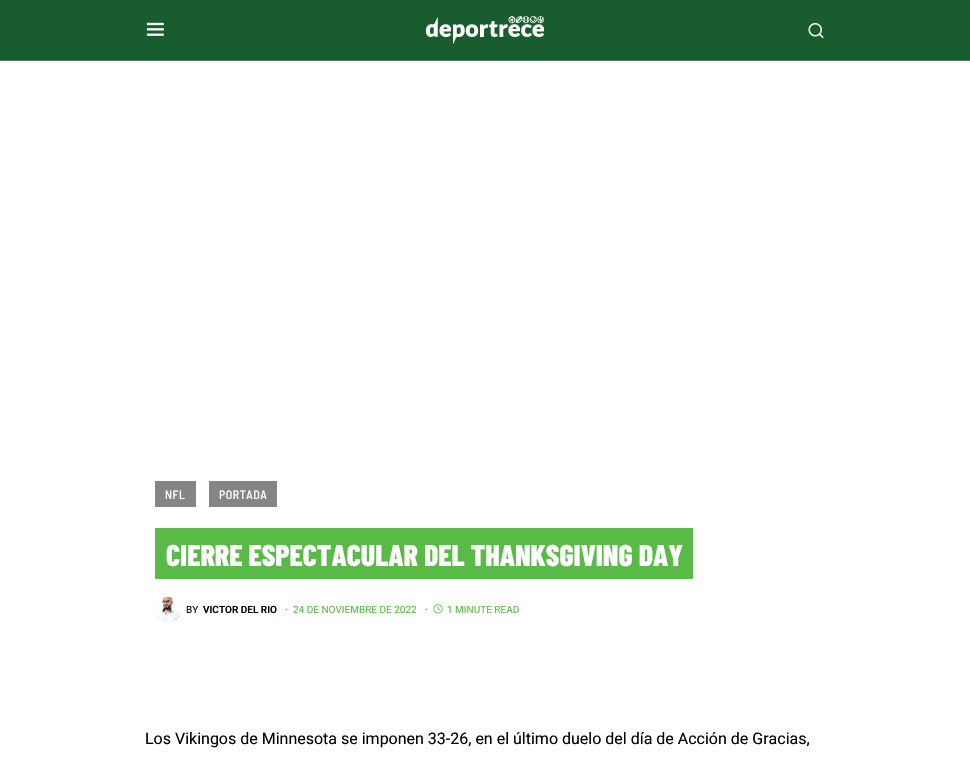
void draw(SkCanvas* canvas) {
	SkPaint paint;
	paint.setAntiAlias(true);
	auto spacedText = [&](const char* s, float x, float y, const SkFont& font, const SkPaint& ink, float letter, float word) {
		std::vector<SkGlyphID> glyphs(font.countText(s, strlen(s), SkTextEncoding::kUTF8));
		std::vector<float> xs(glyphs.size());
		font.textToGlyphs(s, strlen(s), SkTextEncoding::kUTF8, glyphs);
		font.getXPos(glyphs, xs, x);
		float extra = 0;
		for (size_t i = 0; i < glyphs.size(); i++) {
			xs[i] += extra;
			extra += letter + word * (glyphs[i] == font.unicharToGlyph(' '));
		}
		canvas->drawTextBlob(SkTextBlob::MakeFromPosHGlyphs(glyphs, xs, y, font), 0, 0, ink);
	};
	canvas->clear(0xffffffff);
	paint.setColor(0xff195d2f);
	canvas->drawRect(SkRect::MakeXYWH(0, 0, 970, 60), paint);
	paint.setColor(0xff477d59);
	canvas->drawRect(SkRect::MakeXYWH(0, 60, 970, 1), paint);
	canvas->drawImageRect(SkImages::DeferredFromEncodedData(SkData::MakeFromFileName("img1.png")), SkRect::MakeXYWH(146, 22, 18, 14), SkSamplingOptions());
	canvas->drawImageRect(SkImages::DeferredFromEncodedData(SkData::MakeFromFileName("img2.png")), SkRect::MakeXYWH(426, 16, 118, 28), SkSamplingOptions());
	canvas->drawImageRect(SkImages::DeferredFromEncodedData(SkData::MakeFromFileName("img3.png")), SkRect::MakeXYWH(808, 23, 16, 15), SkSamplingOptions());
	paint.setColor(0xff858585);
	canvas->drawRect(SkRect::MakeXYWH(155, 481, 41, 26), paint);
	SkFont f1(fontMgr->matchFamilyStyle("Barlow Semi Condensed", SkFontStyle(500, SkFontStyle::kNormal_Width, SkFontStyle::kUpright_Slant)), 12);
	f1.setSubpixel(true);
	paint.setColor(0xffffffff);
	spacedText("NFL", 165, 499, f1, paint, 0.5, 0);
	paint.setColor(0xff858585);
	canvas->drawRect(SkRect::MakeXYWH(209, 481, 68, 26), paint);
	paint.setColor(0xffffffff);
	spacedText("PORTADA", 219, 499, f1, paint, 0.5, 0);
	paint.setColor(0xff5aba47);
	canvas->drawRect(SkRect::MakeXYWH(155, 528, 538, 51), paint);
	SkFont f2(fontMgr->matchFamilyStyle("Barlow Condensed", SkFontStyle(800, SkFontStyle::kNormal_Width, SkFontStyle::kUpright_Slant)), 30);
	f2.setSubpixel(true);
	paint.setColor(0xffffffff);
	canvas->drawString("CIERRE ESPECTACULAR DEL THANKSGIVING DAY", 166, 566, f2, paint);
	canvas->drawImageRect(SkImages::DeferredFromEncodedData(SkData::MakeFromFileName("img4.png")), SkRect::MakeXYWH(155, 597, 26, 26), SkSamplingOptions());
	SkFont f3(fontMgr->matchFamilyStyle("Roboto", SkFontStyle::Normal()), 10);
	f3.setSubpixel(true);
	paint.setColor(0xff000000);
	canvas->drawString("BY", 186, 613, f3, paint);
	SkFont f4(fontMgr->matchFamilyStyle("Roboto", SkFontStyle(600, SkFontStyle::kNormal_Width, SkFontStyle::kUpright_Slant)), 10);
	f4.setSubpixel(true);
	canvas->drawString("VICTOR DEL RIO", 203, 613, f4, paint);
	paint.setColor(0xff5aba47);
	canvas->drawString("·", 285, 613, f4, paint);
	canvas->drawString("24 DE NOVIEMBRE DE 2022", 293, 613, f3, paint);
	canvas->drawString("·", 425, 613, f4, paint);
	canvas->drawImageRect(SkImages::DeferredFromEncodedData(SkData::MakeFromFileName("img5.png")), SkRect::MakeXYWH(433, 604, 10, 10), SkSamplingOptions());
	canvas->drawString("1 MINUTE READ", 447, 613, f3, paint);
	SkFont f5(fontMgr->matchFamilyStyle("Roboto", SkFontStyle::Normal()), 16);
	f5.setSubpixel(true);
	paint.setColor(0xff000000);
	canvas->drawString("Los Vikingos de Minnesota se imponen 33-26, en el último duelo del día de Acción de Gracias,", 145, 744, f5, paint);
}
